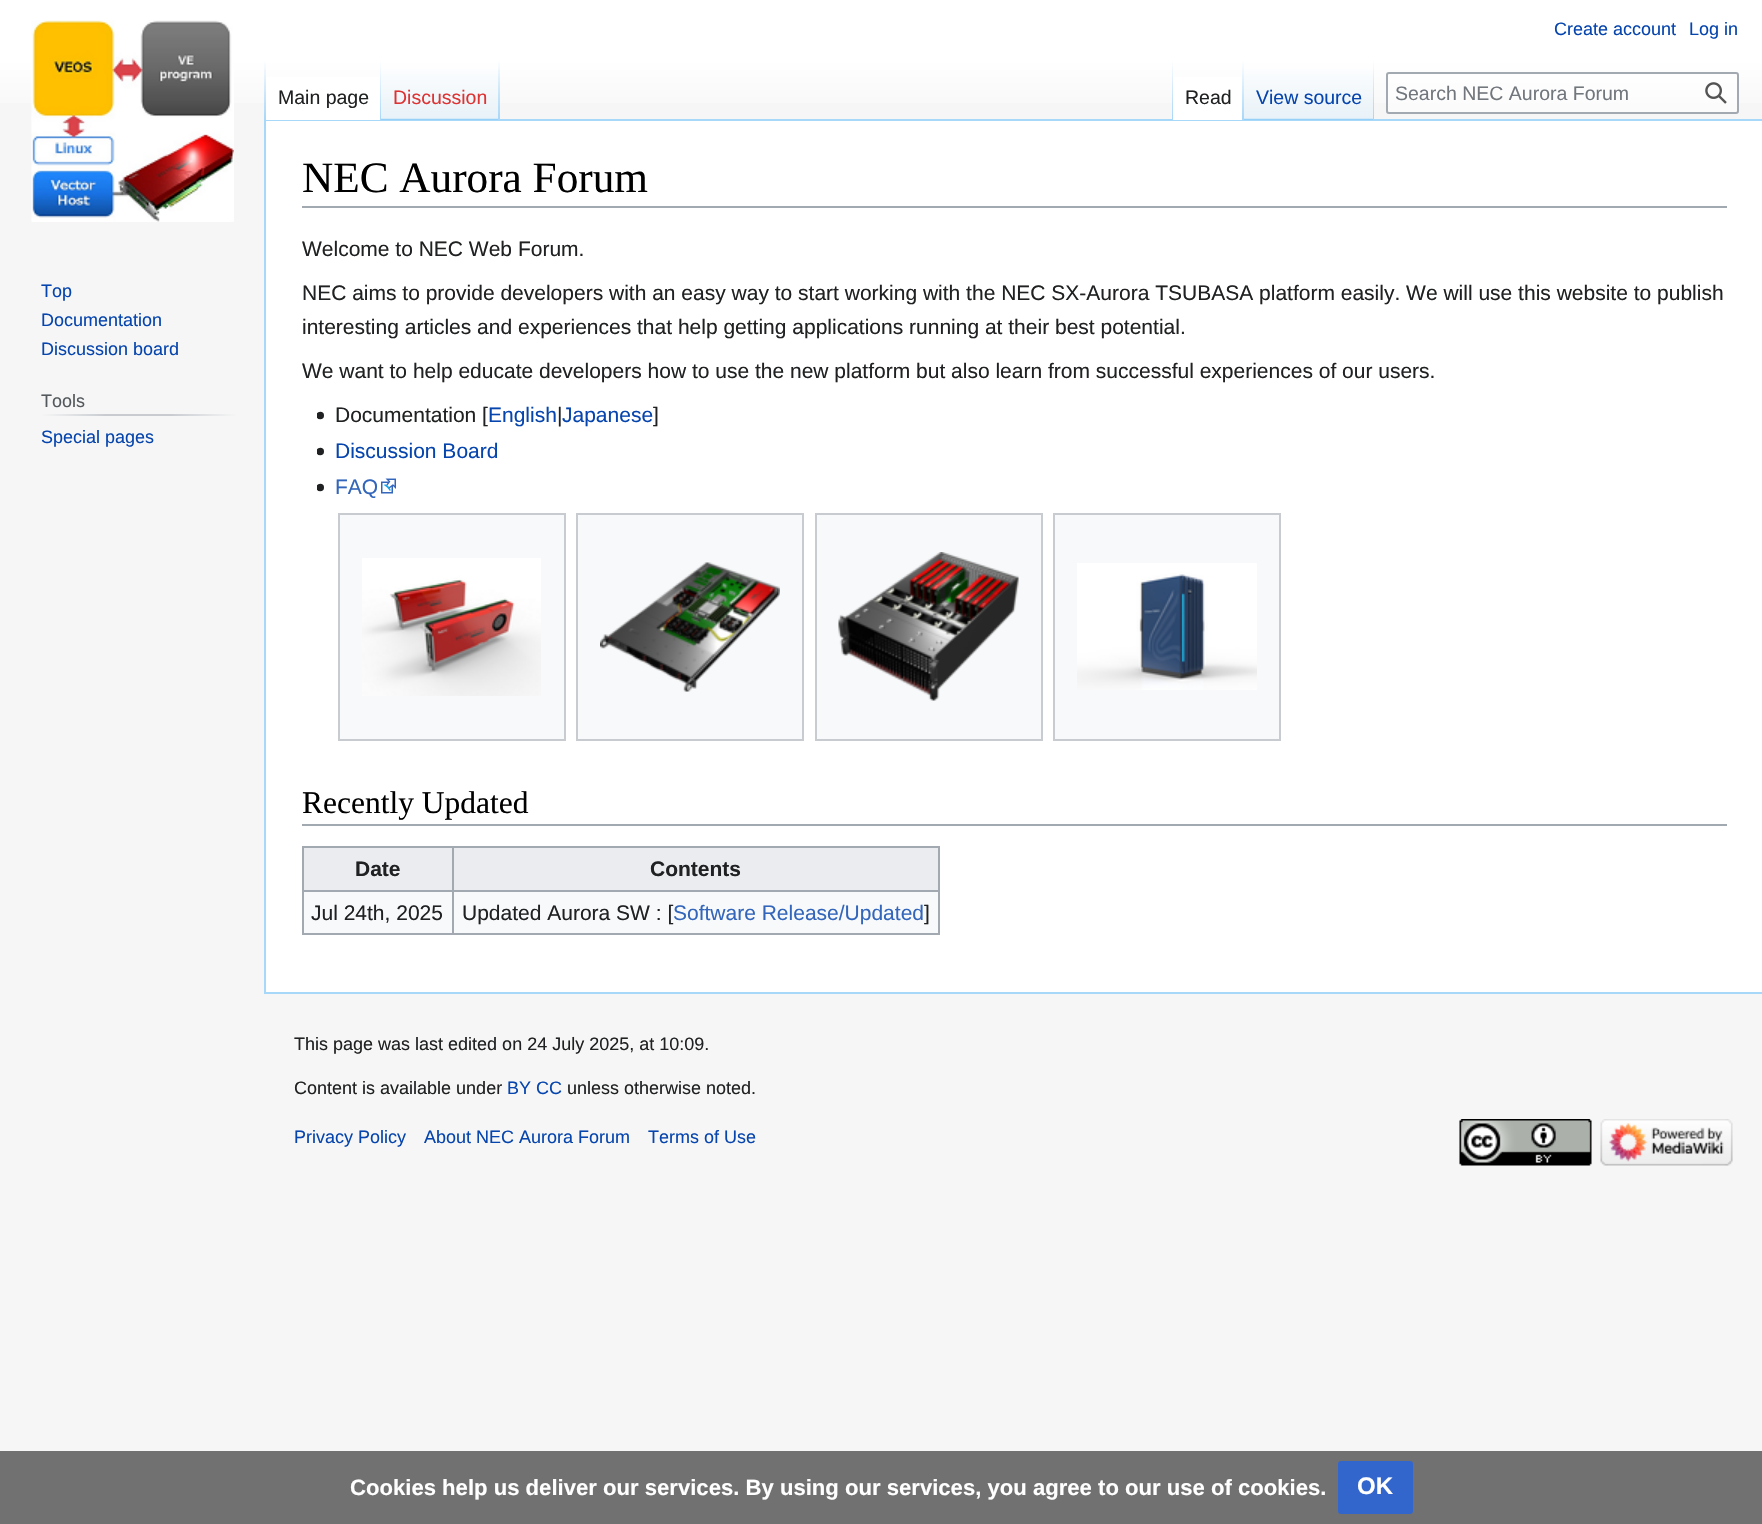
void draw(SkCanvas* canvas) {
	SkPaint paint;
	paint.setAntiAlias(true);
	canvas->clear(0xfff6f6f6);
	{
		const SkColor colors[] = {0xffffffff, 0xfff6f6f6};
		const float stops[] = {0.5, 1};
		const SkPoint ends[] = {{881, 0}, {881, 120}};
		paint.setShader(SkGradientShader::MakeLinear(ends, colors, stops, 2, SkTileMode::kClamp));
		paint.setAlpha(255);
	}
	canvas->drawRect(SkRect::MakeXYWH(0, 0, 1762, 103), paint);
	SkFont f1(fontMgr->matchFamilyStyle("Liberation Sans", SkFontStyle::Normal()), 18);
	f1.setSubpixel(true);
	paint.setShader(nullptr);
	paint.setColor(0xff0645ad);
	canvas->drawString("Create account", 1554, 35, f1, paint);
	canvas->drawString("Log in", 1689, 35, f1, paint);
	paint.setColor(0xffa7d7f9);
	canvas->drawRect(SkRect::MakeXYWH(264, 119, 1498, 2), paint);
	canvas->drawRect(SkRect::MakeXYWH(264, 992, 1498, 2), paint);
	canvas->drawRect(SkRect::MakeXYWH(264, 119, 2, 874), paint);
	{
		const SkColor colors[] = {0x00a7d7f9, 0xffa7d7f9};
		const float stops[] = {0, 1};
		const SkPoint ends[] = {{265, 60}, {265, 120}};
		paint.setShader(SkGradientShader::MakeLinear(ends, colors, stops, 2, SkTileMode::kClamp));
		paint.setAlpha(255);
	}
	canvas->drawRect(SkRect::MakeXYWH(264, 60, 2, 60), paint);
	paint.setShader(nullptr);
	paint.setColor(0xffffffff);
	canvas->drawRect(SkRect::MakeXYWH(266, 77, 114, 43), paint);
	{
		const SkColor colors[] = {0xffffffff, 0xffa7d7f9};
		const float stops[] = {0, 1};
		const SkPoint ends[] = {{380, 60}, {380, 120}};
		paint.setShader(SkGradientShader::MakeLinear(ends, colors, stops, 2, SkTileMode::kClamp));
		paint.setAlpha(255);
	}
	canvas->drawRect(SkRect::MakeXYWH(380, 60, 1, 60), paint);
	SkFont f2(fontMgr->matchFamilyStyle("Liberation Sans", SkFontStyle::Normal()), 19.5);
	f2.setSubpixel(true);
	paint.setShader(nullptr);
	paint.setColor(0xff202122);
	canvas->drawString("Main page", 278, 104, f2, paint);
	{
		const SkColor colors[] = {0xff77c1f6, 0xffe8f2f8, 0xffffffff};
		const float stops[] = {0, 0.03, 1};
		const SkPoint ends[] = {{440, 120}, {440, 60}};
		paint.setShader(SkGradientShader::MakeLinear(ends, colors, stops, 3, SkTileMode::kClamp));
		paint.setAlpha(255);
	}
	canvas->drawRect(SkRect::MakeXYWH(381, 69, 119, 51), paint);
	{
		const SkColor colors[] = {0x00a7d7f9, 0xffa7d7f9};
		const float stops[] = {0, 1};
		const SkPoint ends[] = {{499, 60}, {499, 120}};
		paint.setShader(SkGradientShader::MakeLinear(ends, colors, stops, 2, SkTileMode::kClamp));
		paint.setAlpha(255);
	}
	canvas->drawRect(SkRect::MakeXYWH(498, 60, 2, 60), paint);
	paint.setShader(nullptr);
	paint.setColor(0xffdd3333);
	canvas->drawString("Discussion", 393, 104, f2, paint);
	{
		const SkColor colors[] = {0x00a7d7f9, 0xffa7d7f9};
		const float stops[] = {0, 1};
		const SkPoint ends[] = {{1172, 60}, {1172, 120}};
		paint.setShader(SkGradientShader::MakeLinear(ends, colors, stops, 2, SkTileMode::kClamp));
		paint.setAlpha(255);
	}
	canvas->drawRect(SkRect::MakeXYWH(1172, 60, 1, 60), paint);
	paint.setShader(nullptr);
	paint.setColor(0xffffffff);
	canvas->drawRect(SkRect::MakeXYWH(1173, 77, 69, 43), paint);
	{
		const SkColor colors[] = {0xffffffff, 0xffa7d7f9};
		const float stops[] = {0, 1};
		const SkPoint ends[] = {{1243, 60}, {1243, 120}};
		paint.setShader(SkGradientShader::MakeLinear(ends, colors, stops, 2, SkTileMode::kClamp));
		paint.setAlpha(255);
	}
	canvas->drawRect(SkRect::MakeXYWH(1242, 60, 2, 60), paint);
	paint.setShader(nullptr);
	paint.setColor(0xff202122);
	canvas->drawString("Read", 1185, 104, f2, paint);
	{
		const SkColor colors[] = {0xff77c1f6, 0xffe8f2f8, 0xffffffff};
		const float stops[] = {0, 0.03, 1};
		const SkPoint ends[] = {{1309, 120}, {1309, 60}};
		paint.setShader(SkGradientShader::MakeLinear(ends, colors, stops, 3, SkTileMode::kClamp));
		paint.setAlpha(255);
	}
	canvas->drawRect(SkRect::MakeXYWH(1244, 69, 130, 51), paint);
	{
		const SkColor colors[] = {0x00a7d7f9, 0xffa7d7f9};
		const float stops[] = {0, 1};
		const SkPoint ends[] = {{1373, 60}, {1373, 120}};
		paint.setShader(SkGradientShader::MakeLinear(ends, colors, stops, 2, SkTileMode::kClamp));
		paint.setAlpha(255);
	}
	canvas->drawRect(SkRect::MakeXYWH(1373, 60, 1, 60), paint);
	paint.setShader(nullptr);
	paint.setColor(0xff0645ad);
	canvas->drawString("View source", 1256, 104, f2, paint);
	paint.setColor(0x80ffffff);
	canvas->drawRoundRect(SkRect::MakeXYWH(1387, 73, 351, 40), 2, 2, paint);
	paint.setStroke(true);
	paint.setStrokeWidth(2);
	paint.setColor(0xffa2a9b1);
	canvas->drawRoundRect(SkRect::MakeXYWH(1387, 73, 351, 40), 2, 2, paint);
	paint.setStroke(false);
	paint.setColor(0xff72777d);
	canvas->drawString("Search NEC Aurora Forum", 1395, 100, f2, paint);
	canvas->drawImageRect(SkImages::DeferredFromEncodedData(SkData::MakeFromFileName("img1.png")), SkRect::MakeXYWH(1705, 82, 22, 22), SkSamplingOptions());
	canvas->drawImageRect(SkImages::DeferredFromEncodedData(SkData::MakeFromFileName("img2.png")), SkRect::MakeXYWH(31, 20, 203, 202), SkSamplingOptions());
	paint.setColor(0xff0645ad);
	canvas->drawString("Top", 41, 297, f1, paint);
	canvas->drawString("Documentation", 41, 326, f1, paint);
	canvas->drawString("Discussion board", 41, 355, f1, paint);
	{
		const SkColor colors[] = {0xfff6f6f6, 0xffc8ccd1, 0xffc8ccd1, 0xfff6f6f6};
		const float stops[] = {0, 0.33, 0.66, 1};
		const SkPoint ends[] = {{41, 415}, {237, 415}};
		paint.setShader(SkGradientShader::MakeLinear(ends, colors, stops, 4, SkTileMode::kClamp));
		paint.setAlpha(255);
	}
	canvas->drawRect(SkRect::MakeXYWH(41, 414, 196, 2), paint);
	paint.setShader(nullptr);
	paint.setColor(0xff54595d);
	canvas->drawString("Tools", 41, 407, f1, paint);
	paint.setColor(0xff0645ad);
	canvas->drawString("Special pages", 41, 443, f1, paint);
	paint.setColor(0xffffffff);
	canvas->drawRect(SkRect::MakeXYWH(266, 121, 1496, 871), paint);
	paint.setColor(0xffa2a9b1);
	canvas->drawRect(SkRect::MakeXYWH(302, 206, 1425, 2), paint);
	SkFont f3(fontMgr->matchFamilyStyle("Liberation Serif", SkFontStyle::Normal()), 43.25);
	f3.setSubpixel(true);
	paint.setColor(0xff000000);
	canvas->drawString("NEC Aurora Forum", 302, 192, f3, paint);
	SkFont f4(fontMgr->matchFamilyStyle("Liberation Sans", SkFontStyle::Normal()), 21);
	f4.setSubpixel(true);
	paint.setColor(0xff202122);
	canvas->drawString("Welcome to NEC Web Forum.", 302, 256, f4, paint);
	canvas->drawString("NEC aims to provide developers with an easy way to start working with the NEC SX-Aurora TSUBASA platform easily. We will use this website to publish", 302, 300, f4, paint);
	canvas->drawString("interesting articles and experiences that help getting applications running at their best potential.", 302, 334, f4, paint);
	canvas->drawString("We want to help educate developers how to use the new platform but also learn from successful experiences of our users.", 302, 378, f4, paint);
	canvas->drawImageRect(SkImages::DeferredFromEncodedData(SkData::MakeFromFileName("img3.png")), SkRect::MakeXYWH(317, 411, 7, 9), SkSamplingOptions());
	canvas->drawString("Documentation [", 335, 422, f4, paint);
	paint.setColor(0xff0645ad);
	canvas->drawString("English", 488, 422, f4, paint);
	paint.setColor(0xff202122);
	canvas->drawString("|", 557, 422, f4, paint);
	paint.setColor(0xff0645ad);
	canvas->drawString("Japanese", 562, 422, f4, paint);
	paint.setColor(0xff202122);
	canvas->drawString("]", 653, 422, f4, paint);
	canvas->drawImageRect(SkImages::DeferredFromEncodedData(SkData::MakeFromFileName("img3.png")), SkRect::MakeXYWH(317, 447, 7, 9), SkSamplingOptions());
	paint.setColor(0xff0645ad);
	canvas->drawString("Discussion Board", 335, 458, f4, paint);
	canvas->drawImageRect(SkImages::DeferredFromEncodedData(SkData::MakeFromFileName("img3.png")), SkRect::MakeXYWH(317, 483, 7, 9), SkSamplingOptions());
	paint.setColor(0xff3366bb);
	canvas->drawString("FAQ", 335, 494, f4, paint);
	canvas->drawImageRect(SkImages::DeferredFromEncodedData(SkData::MakeFromFileName("img4.png")), SkRect::MakeXYWH(381, 478, 15, 16), SkSamplingOptions());
	paint.setColor(0xfff8f9fa);
	canvas->drawRect(SkRect::MakeXYWH(339, 514, 226, 226), paint);
	paint.setStroke(true);
	paint.setColor(0xffc8ccd1);
	canvas->drawRect(SkRect::MakeXYWH(339, 514, 226, 226), paint);
	canvas->drawImageRect(SkImages::DeferredFromEncodedData(SkData::MakeFromFileName("img5.png")), SkRect::MakeXYWH(362, 558, 179, 138), SkSamplingOptions());
	paint.setStroke(false);
	paint.setColor(0xfff8f9fa);
	canvas->drawRect(SkRect::MakeXYWH(577, 514, 226, 226), paint);
	paint.setStroke(true);
	paint.setColor(0xffc8ccd1);
	canvas->drawRect(SkRect::MakeXYWH(577, 514, 226, 226), paint);
	canvas->drawImageRect(SkImages::DeferredFromEncodedData(SkData::MakeFromFileName("img6.png")), SkRect::MakeXYWH(600, 562, 180, 130), SkSamplingOptions());
	paint.setStroke(false);
	paint.setColor(0xfff8f9fa);
	canvas->drawRect(SkRect::MakeXYWH(816, 514, 226, 226), paint);
	paint.setStroke(true);
	paint.setColor(0xffc8ccd1);
	canvas->drawRect(SkRect::MakeXYWH(816, 514, 226, 226), paint);
	canvas->drawImageRect(SkImages::DeferredFromEncodedData(SkData::MakeFromFileName("img7.png")), SkRect::MakeXYWH(838, 552, 181, 149), SkSamplingOptions());
	paint.setStroke(false);
	paint.setColor(0xfff8f9fa);
	canvas->drawRect(SkRect::MakeXYWH(1054, 514, 226, 226), paint);
	paint.setStroke(true);
	paint.setColor(0xffc8ccd1);
	canvas->drawRect(SkRect::MakeXYWH(1054, 514, 226, 226), paint);
	canvas->drawImageRect(SkImages::DeferredFromEncodedData(SkData::MakeFromFileName("img8.png")), SkRect::MakeXYWH(1077, 563, 180, 127), SkSamplingOptions());
	paint.setStroke(false);
	paint.setColor(0xffa2a9b1);
	canvas->drawRect(SkRect::MakeXYWH(302, 824, 1425, 2), paint);
	SkFont f5(fontMgr->matchFamilyStyle("Liberation Serif", SkFontStyle::Normal()), 31.5);
	f5.setSubpixel(true);
	paint.setColor(0xff000000);
	canvas->drawString("Recently Updated", 302, 813, f5, paint);
	paint.setColor(0xfff8f9fa);
	canvas->drawRect(SkRect::MakeXYWH(304, 892, 634, 41), paint);
	paint.setColor(0xffa2a9b1);
	canvas->drawRect(SkRect::MakeXYWH(302, 846, 637, 2), paint);
	canvas->drawRect(SkRect::MakeXYWH(938, 846, 2, 89), paint);
	canvas->drawRect(SkRect::MakeXYWH(302, 933, 637, 2), paint);
	canvas->drawRect(SkRect::MakeXYWH(302, 846, 2, 89), paint);
	paint.setColor(0xffeaecf0);
	canvas->drawRect(SkRect::MakeXYWH(304, 848, 148, 42), paint);
	SkFont f6(fontMgr->matchFamilyStyle("Liberation Sans", SkFontStyle::Bold()), 21);
	f6.setSubpixel(true);
	paint.setColor(0xff202122);
	canvas->drawString("Date", 355, 876, f6, paint);
	paint.setColor(0xffeaecf0);
	canvas->drawRect(SkRect::MakeXYWH(454, 848, 484, 42), paint);
	paint.setColor(0xffa2a9b1);
	canvas->drawRect(SkRect::MakeXYWH(452, 890, 487, 2), paint);
	canvas->drawRect(SkRect::MakeXYWH(452, 890, 2, 45), paint);
	canvas->drawRect(SkRect::MakeXYWH(302, 890, 151, 2), paint);
	canvas->drawRect(SkRect::MakeXYWH(452, 846, 2, 45), paint);
	paint.setColor(0xff202122);
	canvas->drawString("Contents", 650, 876, f6, paint);
	canvas->drawString("Jul 24th, 2025", 311, 920, f4, paint);
	canvas->drawString("Updated Aurora SW : [", 462, 920, f4, paint);
	paint.setColor(0xff3366bb);
	canvas->drawString("Software Release/Updated", 673, 920, f4, paint);
	paint.setColor(0xff202122);
	canvas->drawString("]", 924, 920, f4, paint);
	canvas->drawString("This page was last edited on 24 July 2025, at 10:09.", 294, 1050, f1, paint);
	canvas->drawString("Content is available under", 294, 1094, f1, paint);
	paint.setColor(0xff0645ad);
	canvas->drawString("BY CC", 507, 1094, f1, paint);
	paint.setColor(0xff202122);
	canvas->drawString("unless otherwise noted.", 567, 1094, f1, paint);
	paint.setColor(0xff0645ad);
	canvas->drawString("Privacy Policy", 294, 1143, f1, paint);
	canvas->drawString("About NEC Aurora Forum", 424, 1143, f1, paint);
	canvas->drawString("Terms of Use", 648, 1143, f1, paint);
	canvas->drawImageRect(SkImages::DeferredFromEncodedData(SkData::MakeFromFileName("img9.png")), SkRect::MakeXYWH(1459, 1119, 133, 47), SkSamplingOptions());
	canvas->drawImageRect(SkImages::DeferredFromEncodedData(SkData::MakeFromFileName("img10.png")), SkRect::MakeXYWH(1600, 1119, 133, 47), SkSamplingOptions());
	paint.setColor(0xff717171);
	canvas->drawRect(SkRect::MakeXYWH(0, 1451, 1762, 73), paint);
	SkFont f7(fontMgr->matchFamilyStyle("Liberation Sans", SkFontStyle::Bold()), 22.1);
	f7.setSubpixel(true);
	paint.setColor(0xffffffff);
	canvas->drawString("Cookies help us deliver our services. By using our services, you agree to our use of cookies.", 350, 1495, f7, paint);
	paint.setColor(0xff3366cc);
	canvas->drawRoundRect(SkRect::MakeXYWH(1339, 1462, 73, 51), 2, 2, paint);
	paint.setStroke(true);
	canvas->drawRoundRect(SkRect::MakeXYWH(1339, 1462, 73, 51), 2, 2, paint);
	SkFont f8(fontMgr->matchFamilyStyle("Liberation Sans", SkFontStyle::Bold()), 24);
	f8.setSubpixel(true);
	paint.setStroke(false);
	paint.setColor(0xffffffff);
	canvas->drawString("OK", 1357, 1494, f8, paint);
}
